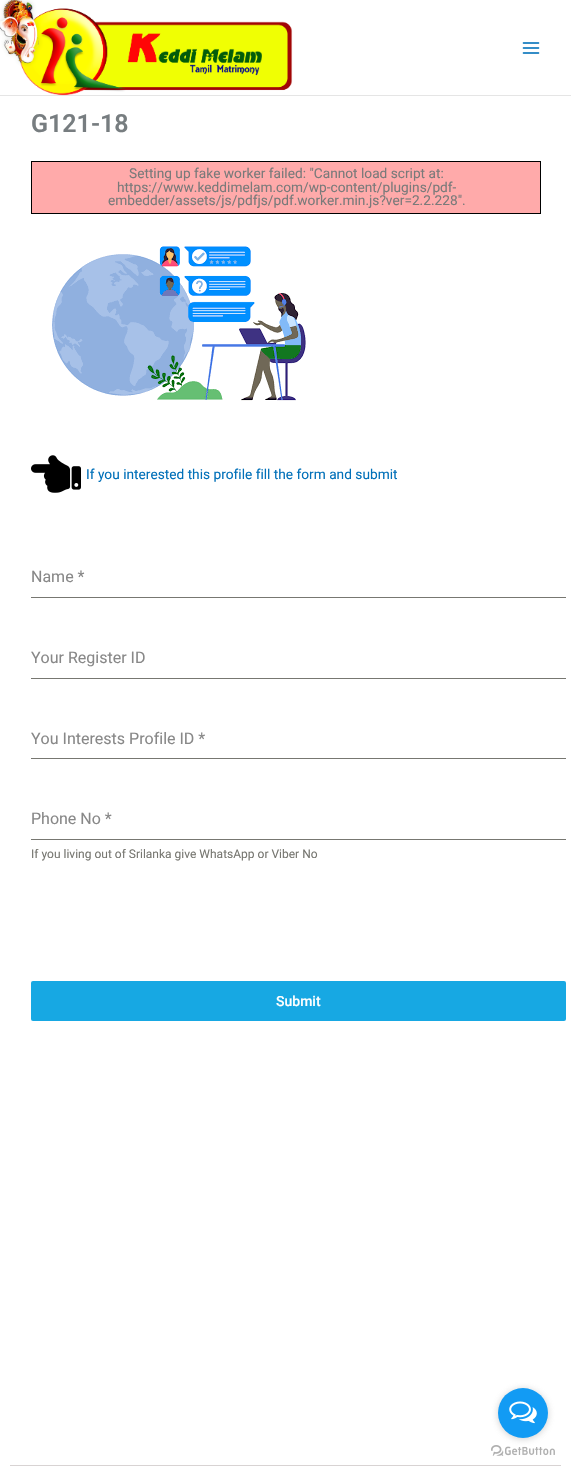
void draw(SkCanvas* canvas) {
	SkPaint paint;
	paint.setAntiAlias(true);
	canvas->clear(0xffffffff);
	paint.setColor(0xffe5e5e5);
	canvas->drawRect(SkRect::MakeXYWH(0, 95, 571, 1), paint);
	canvas->drawImageRect(SkImages::DeferredFromEncodedData(SkData::MakeFromFileName("img1.png")), SkRect::MakeXYWH(0, 0, 293, 96), SkSamplingOptions());
	canvas->drawImageRect(SkImages::DeferredFromEncodedData(SkData::MakeFromFileName("img2.png")), SkRect::MakeXYWH(522, 42, 18, 12), SkSamplingOptions());
	SkFont f1(fontMgr->matchFamilyStyle("Roboto", SkFontStyle(600, SkFontStyle::kNormal_Width, SkFontStyle::kUpright_Slant)), 25);
	f1.setSubpixel(true);
	paint.setColor(0xff777d80);
	canvas->drawString("G121-18", 31, 132, f1, paint);
	paint.setStroke(true);
	paint.setStrokeWidth(1);
	paint.setColor(0xff000000);
	canvas->drawRect(SkRect::MakeXYWH(31.5, 161.5, 509, 52), paint);
	paint.setStroke(false);
	paint.setColor(0xffffaaaa);
	canvas->drawRect(SkRect::MakeXYWH(32, 162, 508, 51), paint);
	SkFont f2(fontMgr->matchFamilyStyle("Roboto", SkFontStyle::Normal()), 13.7);
	f2.setSubpixel(true);
	paint.setColor(0xff7a7a7a);
	canvas->drawString("Setting up fake worker failed: \"Cannot load script at:", 129, 178, f2, paint);
	canvas->drawString("https://www.keddimelam.com/wp-content/plugins/pdf-", 117, 192, f2, paint);
	canvas->drawString("embedder/assets/js/pdfjs/pdf.worker.min.js?ver=2.2.228\".", 108, 205, f2, paint);
	canvas->drawImageRect(SkImages::DeferredFromEncodedData(SkData::MakeFromFileName("img3.png")), SkRect::MakeXYWH(52, 246, 254, 155), SkSamplingOptions());
	canvas->drawImageRect(SkImages::DeferredFromEncodedData(SkData::MakeFromFileName("img4.png")), SkRect::MakeXYWH(31, 455, 50, 38), SkSamplingOptions());
	paint.setColor(0xff0170b9);
	canvas->drawString("If you interested this profile fill the form and submit", 86, 479, f2, paint);
	SkFont f3(fontMgr->matchFamilyStyle("Roboto", SkFontStyle::Normal()), 16);
	f3.setSubpixel(true);
	paint.setColor(0xff888888);
	canvas->drawString("Name *", 31, 582, f3, paint);
	paint.setColor(0xff777771);
	canvas->drawRect(SkRect::MakeXYWH(31, 597, 535, 1), paint);
	paint.setColor(0xff888888);
	canvas->drawString("Your Register ID", 31, 663, f3, paint);
	paint.setColor(0xff777771);
	canvas->drawRect(SkRect::MakeXYWH(31, 678, 535, 1), paint);
	paint.setColor(0xff888888);
	canvas->drawString("You Interests Profile ID *", 31, 744, f3, paint);
	paint.setColor(0xff777771);
	canvas->drawRect(SkRect::MakeXYWH(31, 758, 535, 1), paint);
	paint.setColor(0xff888888);
	canvas->drawString("Phone No *", 31, 824, f3, paint);
	paint.setColor(0xff777771);
	canvas->drawRect(SkRect::MakeXYWH(31, 839, 535, 1), paint);
	SkFont f4(fontMgr->matchFamilyStyle("Roboto", SkFontStyle::Normal()), 12);
	f4.setSubpixel(true);
	canvas->drawString("If you living out of Srilanka give WhatsApp or Viber No", 31, 858, f4, paint);
	paint.setColor(0xff17a8e3);
	canvas->drawRoundRect(SkRect::MakeXYWH(31, 981, 535, 40), 2, 2, paint);
	SkFont f5(fontMgr->matchFamilyStyle("Roboto", SkFontStyle(500, SkFontStyle::kNormal_Width, SkFontStyle::kUpright_Slant)), 14);
	f5.setSubpixel(true);
	paint.setColor(0xffffffff);
	canvas->drawString("Submit", 276, 1006, f5, paint);
	paint.setColor(0xffd8d3d3);
	canvas->drawRect(SkRect::MakeXYWH(10, 1465, 551, 1), paint);
	canvas->drawImageRect(SkImages::DeferredFromEncodedData(SkData::MakeFromFileName("img6.png")), SkRect::MakeXYWH(491, 1445, 64, 11), SkSamplingOptions());
	paint.setColor(0x66888888);
	paint.setMaskFilter(SkMaskFilter::MakeBlur(kNormal_SkBlurStyle, 3.5));
	canvas->drawRoundRect(SkRect::MakeXYWH(498, 1389, 50, 50), 25, 25, paint);
	paint.setMaskFilter(nullptr);
	paint.setColor(0xff129bf4);
	canvas->drawCircle(523, 1413, 25, paint);
	canvas->drawImageRect(SkImages::DeferredFromEncodedData(SkData::MakeFromFileName("img5.png")), SkRect::MakeXYWH(509, 1401, 28, 23), SkSamplingOptions());
}
